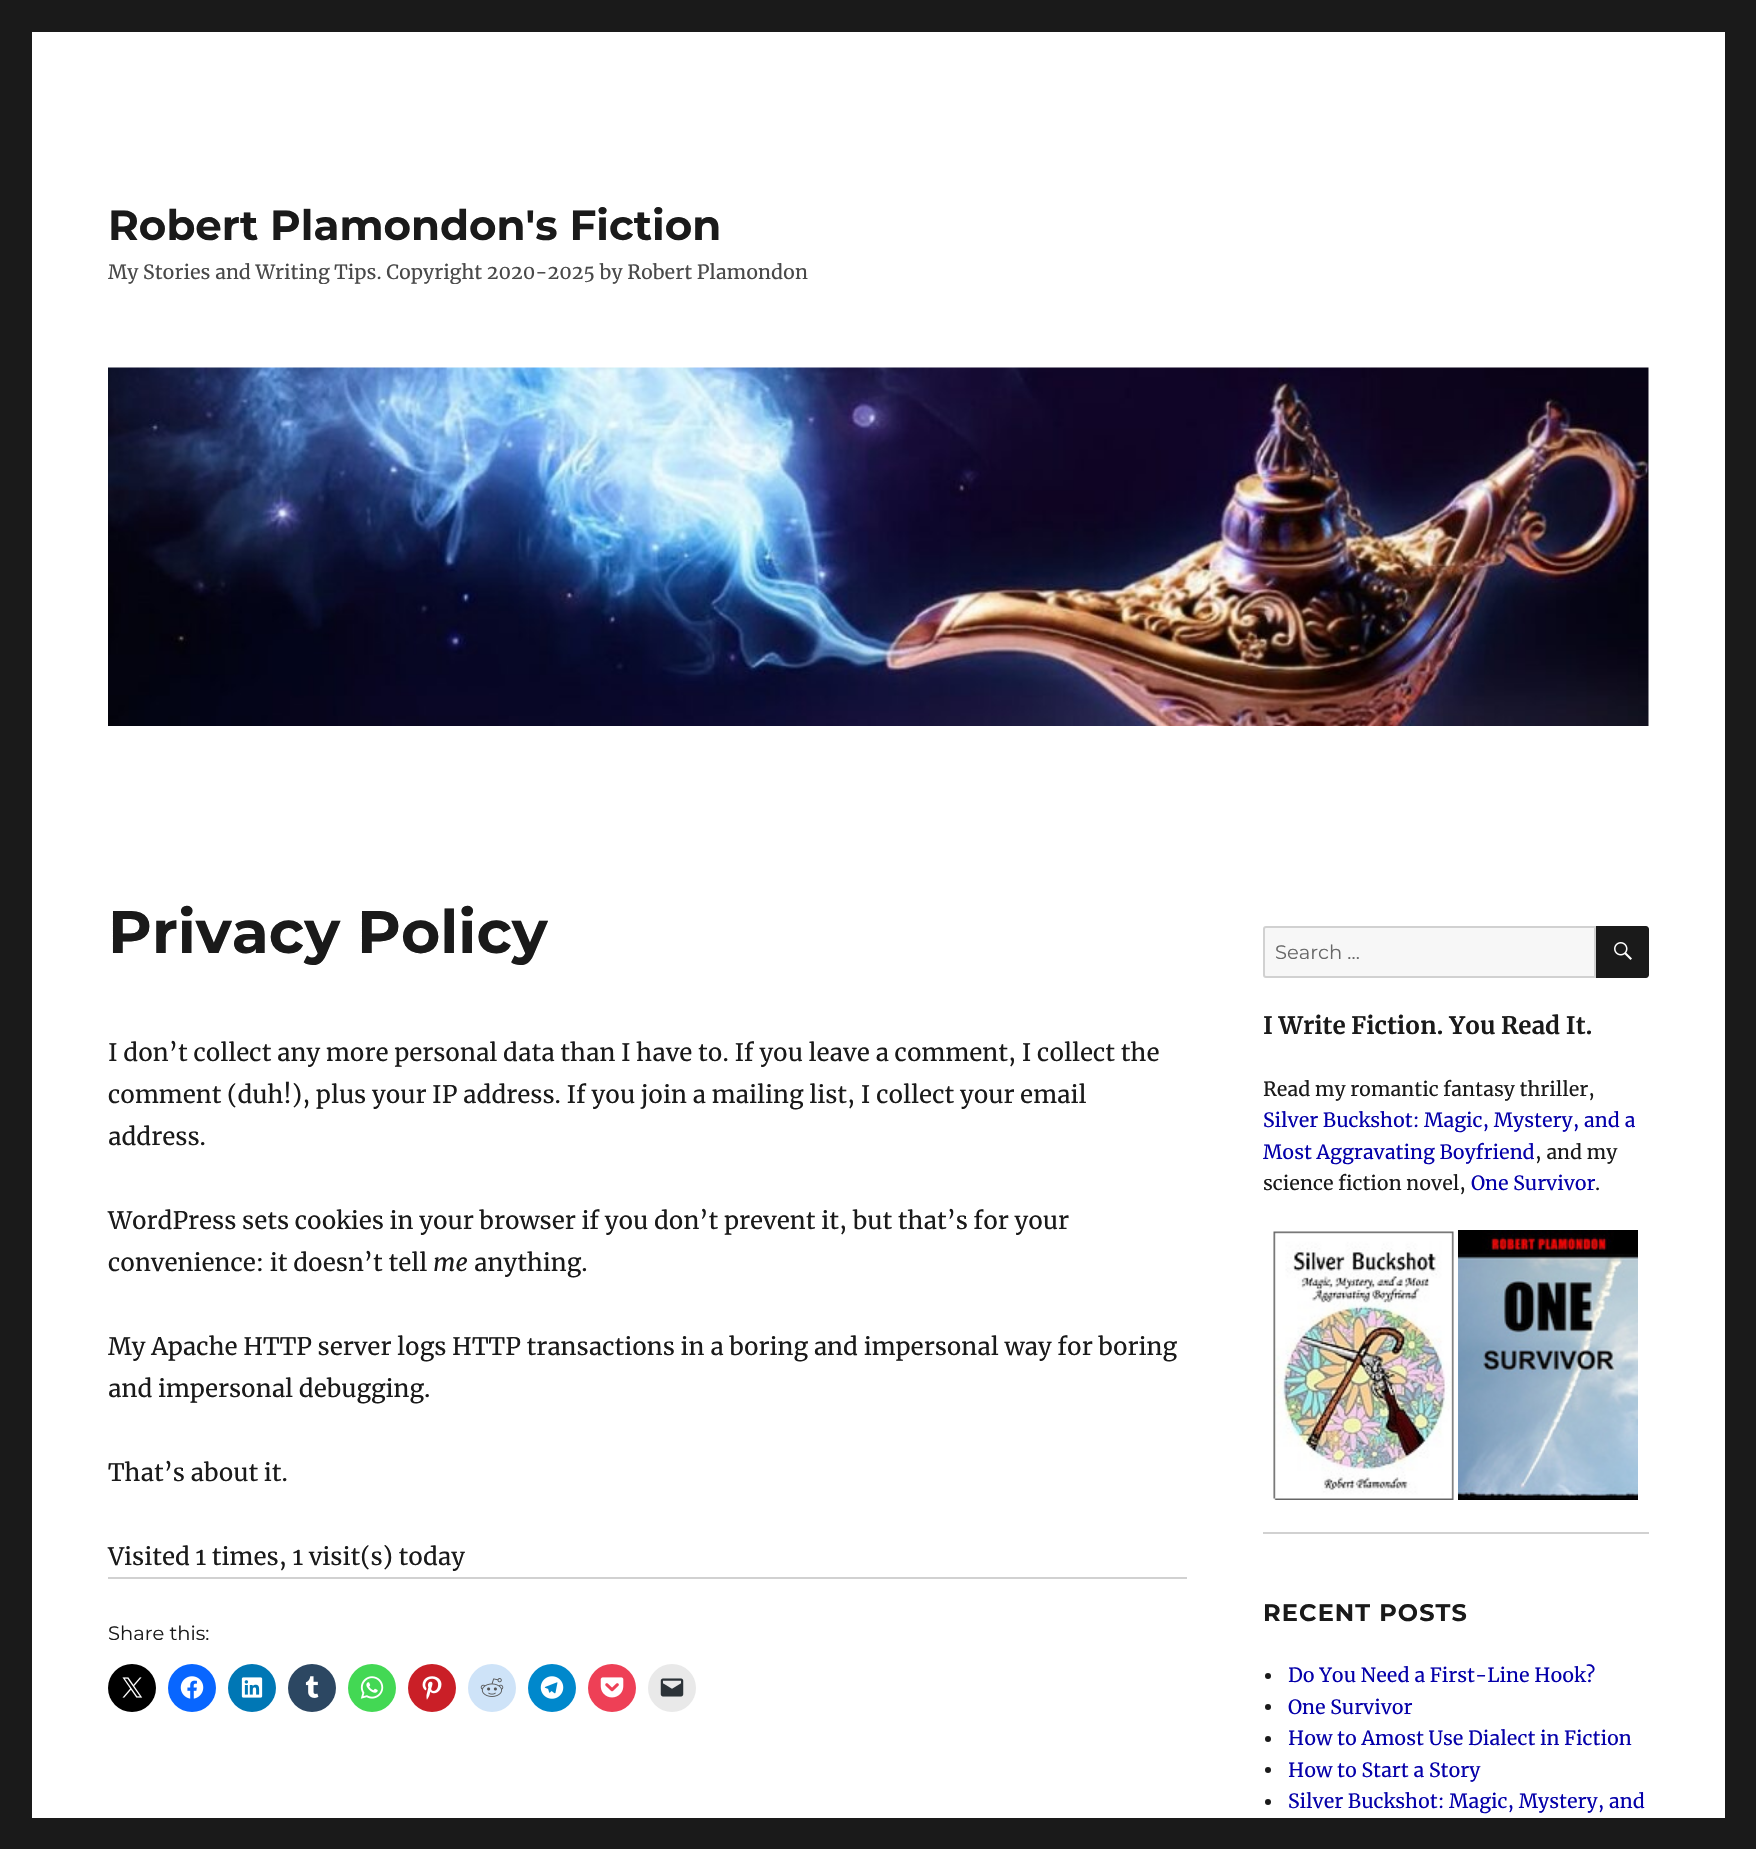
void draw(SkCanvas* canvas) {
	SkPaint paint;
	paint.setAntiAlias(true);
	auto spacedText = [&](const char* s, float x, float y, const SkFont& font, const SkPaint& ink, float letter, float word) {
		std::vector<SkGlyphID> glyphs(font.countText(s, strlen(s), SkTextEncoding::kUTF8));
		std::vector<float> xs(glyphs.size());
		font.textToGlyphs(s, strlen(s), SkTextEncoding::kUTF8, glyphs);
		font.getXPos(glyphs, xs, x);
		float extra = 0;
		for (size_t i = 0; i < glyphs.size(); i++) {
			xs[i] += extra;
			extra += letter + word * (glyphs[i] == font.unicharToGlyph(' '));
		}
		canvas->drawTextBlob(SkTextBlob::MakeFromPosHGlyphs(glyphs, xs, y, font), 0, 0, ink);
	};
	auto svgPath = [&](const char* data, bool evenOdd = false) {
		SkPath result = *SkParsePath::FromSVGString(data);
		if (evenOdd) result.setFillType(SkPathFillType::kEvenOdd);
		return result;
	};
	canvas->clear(0xff1a1a1a);
	paint.setColor(0xffffffff);
	canvas->drawRect(SkRect::MakeXYWH(32, 32, 1693, 1786), paint);
	SkFont f1(fontMgr->matchFamilyStyle("Montserrat", SkFontStyle(100, SkFontStyle::kNormal_Width, SkFontStyle::kUpright_Slant)), 42);
	f1.setSubpixel(true);
	paint.setColor(0xff1a1a1a);
	canvas->drawString("Robert Plamondon's Fiction", 108, 240, f1, paint);
	canvas->save();
	canvas->clipRect(SkRect::MakeXYWH(108, 200, 701, 84));
	SkFont f2(fontMgr->matchFamilyStyle("Merriweather", SkFontStyle::Normal()), 19.5);
	f2.setSubpixel(true);
	paint.setColor(0xff494949);
	canvas->drawString("My Stories and Writing Tips. Copyright 2020-2025 by Robert Plamondon", 108, 279, f2, paint);
	canvas->restore();
	canvas->drawImageRect(SkImages::DeferredFromEncodedData(SkData::MakeFromFileName("img1.png")), SkRect::MakeXYWH(108, 367, 1541, 359), SkSamplingOptions());
	SkFont f3(fontMgr->matchFamilyStyle("Montserrat", SkFontStyle(100, SkFontStyle::kNormal_Width, SkFontStyle::kUpright_Slant)), 60);
	f3.setSubpixel(true);
	paint.setColor(0xff1a1a1a);
	canvas->drawString("Privacy Policy", 108, 953, f3, paint);
	SkFont f4(fontMgr->matchFamilyStyle("Merriweather", SkFontStyle::Normal()), 24);
	f4.setSubpixel(true);
	canvas->drawString("I don’t collect any more personal data than I have to. If you leave a comment, I collect the", 108, 1061, f4, paint);
	canvas->drawString("comment (duh!), plus your IP address. If you join a mailing list, I collect your email", 108, 1103, f4, paint);
	canvas->drawString("address.", 108, 1145, f4, paint);
	canvas->drawString("WordPress sets cookies in your browser if you don’t prevent it, but that’s for your", 108, 1229, f4, paint);
	canvas->drawString("convenience: it doesn’t tell", 108, 1271, f4, paint);
	SkFont f5(fontMgr->matchFamilyStyle("Merriweather", SkFontStyle::Italic()), 24);
	f5.setSubpixel(true);
	canvas->drawString("me", 433, 1271, f5, paint);
	canvas->drawString("anything.", 474, 1271, f4, paint);
	canvas->drawString("My Apache HTTP server logs HTTP transactions in a boring and impersonal way for boring", 108, 1355, f4, paint);
	canvas->drawString("and impersonal debugging.", 108, 1397, f4, paint);
	canvas->drawString("That’s about it.", 108, 1481, f4, paint);
	canvas->drawString("Visited 1 times, 1 visit(s) today", 108, 1565, f4, paint);
	paint.setColor(0xffd1d1d1);
	canvas->drawRect(SkRect::MakeXYWH(108, 1577, 1079, 2), paint);
	SkFont f6(fontMgr->matchFamilyStyle("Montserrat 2", SkFontStyle(100, SkFontStyle::kNormal_Width, SkFontStyle::kUpright_Slant)), 19.5);
	f6.setSubpixel(true);
	paint.setColor(0xff1a1a1a);
	canvas->drawString("Share this:", 108, 1640, f6, paint);
	paint.setColor(0xff000000);
	canvas->drawCircle(132, 1688, 24, paint);
	canvas->drawImageRect(SkImages::DeferredFromEncodedData(SkData::MakeFromFileName("img2.png")), SkRect::MakeXYWH(122, 1677, 21, 21), SkSamplingOptions());
	paint.setColor(0xff0866ff);
	canvas->drawCircle(192, 1688, 24, paint);
	canvas->drawImageRect(SkImages::DeferredFromEncodedData(SkData::MakeFromFileName("img3.png")), SkRect::MakeXYWH(180, 1676, 24, 23), SkSamplingOptions());
	paint.setColor(0xff0077b5);
	canvas->drawCircle(252, 1688, 24, paint);
	canvas->drawImageRect(SkImages::DeferredFromEncodedData(SkData::MakeFromFileName("img4.png")), SkRect::MakeXYWH(241, 1677, 22, 21), SkSamplingOptions());
	paint.setColor(0xff2c4762);
	canvas->drawCircle(312, 1688, 24, paint);
	canvas->drawImageRect(SkImages::DeferredFromEncodedData(SkData::MakeFromFileName("img5.png")), SkRect::MakeXYWH(305, 1676, 14, 22), SkSamplingOptions());
	paint.setColor(0xff43d854);
	canvas->drawCircle(372, 1688, 24, paint);
	canvas->drawImageRect(SkImages::DeferredFromEncodedData(SkData::MakeFromFileName("img6.png")), SkRect::MakeXYWH(360, 1676, 24, 23), SkSamplingOptions());
	paint.setColor(0xffca1f27);
	canvas->drawCircle(432, 1688, 24, paint);
	canvas->drawImageRect(SkImages::DeferredFromEncodedData(SkData::MakeFromFileName("img7.png")), SkRect::MakeXYWH(422, 1676, 20, 24), SkSamplingOptions());
	paint.setColor(0xffcee3f8);
	canvas->drawCircle(492, 1688, 24, paint);
	canvas->drawImageRect(SkImages::DeferredFromEncodedData(SkData::MakeFromFileName("img8.png")), SkRect::MakeXYWH(480, 1678, 24, 19), SkSamplingOptions());
	paint.setColor(0xff0088cc);
	canvas->drawCircle(552, 1688, 24, paint);
	canvas->drawImageRect(SkImages::DeferredFromEncodedData(SkData::MakeFromFileName("img9.png")), SkRect::MakeXYWH(540, 1676, 24, 23), SkSamplingOptions());
	paint.setColor(0xffee4056);
	canvas->drawCircle(612, 1688, 24, paint);
	canvas->drawImageRect(SkImages::DeferredFromEncodedData(SkData::MakeFromFileName("img10.png")), SkRect::MakeXYWH(600, 1677, 24, 21), SkSamplingOptions());
	paint.setColor(0xffe9e9e9);
	canvas->drawCircle(672, 1688, 24, paint);
	canvas->drawImageRect(SkImages::DeferredFromEncodedData(SkData::MakeFromFileName("img11.png")), SkRect::MakeXYWH(660, 1678, 24, 19), SkSamplingOptions());
	paint.setColor(0xfff7f7f7);
	canvas->drawPath(svgPath("M1266 927H1595V977H1266C1265 977 1264 976 1264 975V929C1264 928 1265 927 1266 927Z"), paint);
	paint.setStroke(true);
	paint.setStrokeWidth(2);
	paint.setColor(0xffd1d1d1);
	canvas->drawPath(svgPath("M1266 927H1595V977H1266C1265 977 1264 976 1264 975V929C1264 928 1265 927 1266 927Z"), paint);
	paint.setStroke(false);
	paint.setColor(0xff686868);
	canvas->drawString("Search …", 1275, 959, f6, paint);
	paint.setColor(0xff1a1a1a);
	canvas->drawPath(svgPath("M1596 926H1646C1647.5 926 1649 927.5 1649 929V975C1649 976.5 1647.5 978 1646 978H1596Z"), paint);
	canvas->drawImageRect(SkImages::DeferredFromEncodedData(SkData::MakeFromFileName("img12.png")), SkRect::MakeXYWH(1614, 942, 18, 18), SkSamplingOptions());
	SkFont f7(fontMgr->matchFamilyStyle("Merriweather", SkFontStyle::Bold()), 24);
	f7.setSubpixel(true);
	canvas->drawString("I Write Fiction. You Read It.", 1263, 1034, f7, paint);
	canvas->drawString("Read my romantic fantasy thriller,", 1263, 1096, f2, paint);
	paint.setColor(0xff0500aa);
	canvas->drawString("Silver Buckshot: Magic, Mystery, and a", 1263, 1127, f2, paint);
	canvas->drawString("Most Aggravating Boyfriend", 1263, 1159, f2, paint);
	paint.setColor(0xff1a1a1a);
	canvas->drawString(", and my", 1535, 1159, f2, paint);
	canvas->drawString("science fiction novel,", 1263, 1190, f2, paint);
	paint.setColor(0xff0500aa);
	canvas->drawString("One Survivor", 1471, 1190, f2, paint);
	paint.setColor(0xff1a1a1a);
	canvas->drawString(".", 1595, 1190, f2, paint);
	canvas->drawImageRect(SkImages::DeferredFromEncodedData(SkData::MakeFromFileName("img13.png")), SkRect::MakeXYWH(1273, 1231, 181, 269), SkSamplingOptions());
	canvas->drawImageRect(SkImages::DeferredFromEncodedData(SkData::MakeFromFileName("img14.png")), SkRect::MakeXYWH(1458, 1230, 180, 270), SkSamplingOptions());
	paint.setColor(0xffd1d1d1);
	canvas->drawRect(SkRect::MakeXYWH(1263, 1532, 386, 2), paint);
	SkFont f8(fontMgr->matchFamilyStyle("Montserrat", SkFontStyle(100, SkFontStyle::kNormal_Width, SkFontStyle::kUpright_Slant)), 24);
	f8.setSubpixel(true);
	paint.setColor(0xff1a1a1a);
	spacedText("RECENT POSTS", 1263, 1621, f8, paint, 1.1, 0);
	canvas->drawCircle(1268, 1676, 3, paint);
	paint.setColor(0xff0500aa);
	canvas->drawString("Do You Need a First-Line Hook?", 1288, 1682, f2, paint);
	paint.setColor(0xff1a1a1a);
	canvas->drawCircle(1268, 1707, 3, paint);
	paint.setColor(0xff0500aa);
	canvas->drawString("One Survivor", 1288, 1714, f2, paint);
	paint.setColor(0xff1a1a1a);
	canvas->drawCircle(1268, 1739, 3, paint);
	paint.setColor(0xff0500aa);
	canvas->drawString("How to Amost Use Dialect in Fiction", 1288, 1745, f2, paint);
	paint.setColor(0xff1a1a1a);
	canvas->drawCircle(1268, 1770, 3, paint);
	paint.setColor(0xff0500aa);
	canvas->drawString("How to Start a Story", 1288, 1777, f2, paint);
	paint.setColor(0xff1a1a1a);
	canvas->drawCircle(1268, 1802, 3, paint);
	paint.setColor(0xff0500aa);
	canvas->drawString("Silver Buckshot: Magic, Mystery, and", 1288, 1808, f2, paint);
}
